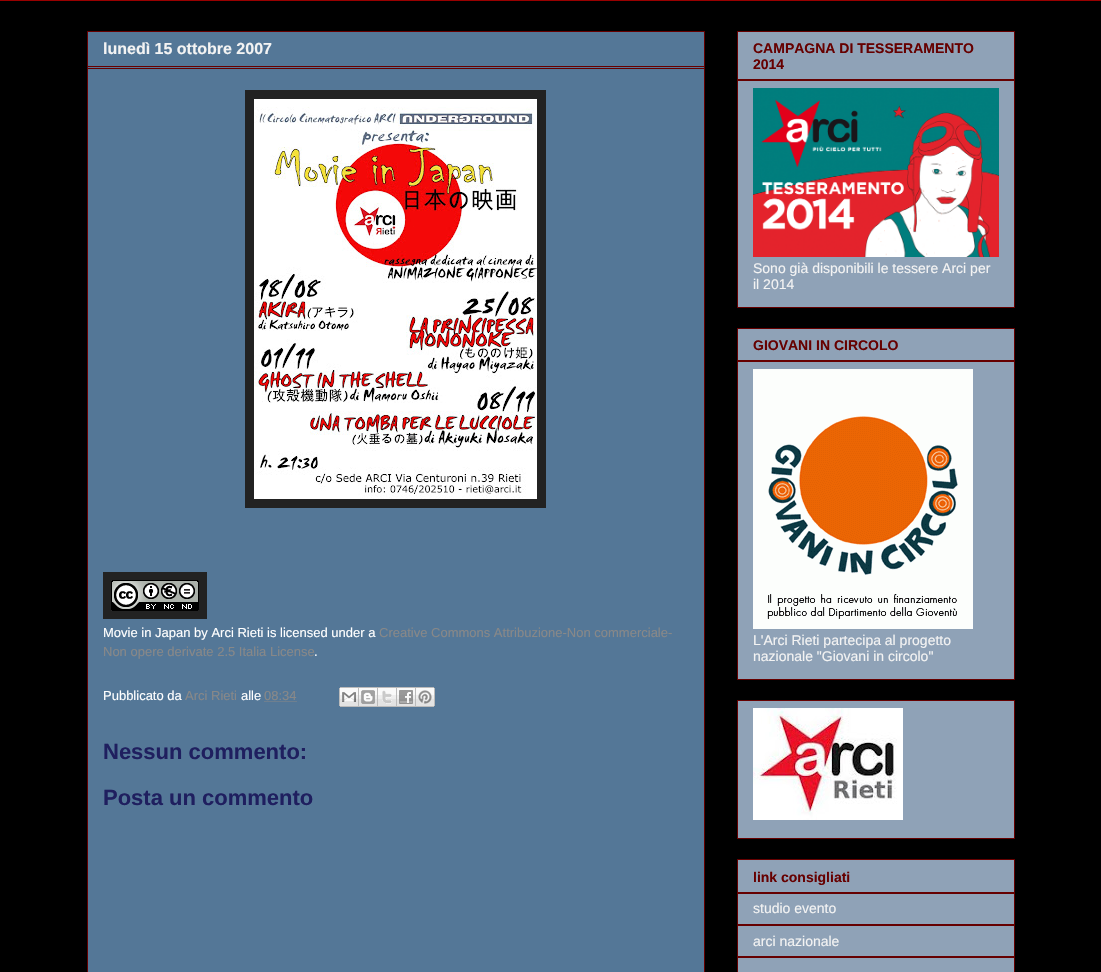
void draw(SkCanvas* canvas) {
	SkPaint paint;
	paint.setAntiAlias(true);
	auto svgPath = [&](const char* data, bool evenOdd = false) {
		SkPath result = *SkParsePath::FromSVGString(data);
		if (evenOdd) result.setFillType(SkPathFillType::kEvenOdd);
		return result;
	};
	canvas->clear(0xff000000);
	paint.setColor(0xff990000);
	canvas->drawRect(SkRect::MakeXYWH(0, 0, 1101, 1), paint);
	paint.setColor(0xff547797);
	canvas->drawRect(SkRect::MakeXYWH(87.5, 31.5, 617, 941), paint);
	paint.setStroke(true);
	paint.setStrokeWidth(1);
	paint.setColor(0xff660000);
	canvas->drawRect(SkRect::MakeXYWH(87.5, 31.5, 617, 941), paint);
	paint.setStroke(false);
	canvas->drawRect(SkRect::MakeXYWH(88, 66, 616, 1), paint);
	SkFont f1(fontMgr->matchFamilyStyle("Liberation Sans", SkFontStyle::Bold()), 16);
	f1.setSubpixel(true);
	paint.setColor(0xfff3f3f3);
	canvas->drawString("lunedì 15 ottobre 2007", 103, 54, f1, paint);
	paint.setColor(0xff660000);
	canvas->drawRect(SkRect::MakeXYWH(88, 68, 616, 1), paint);
	paint.setColor(0xff222222);
	canvas->drawRect(SkRect::MakeXYWH(245, 90, 301, 418), paint);
	canvas->drawImageRect(SkImages::DeferredFromEncodedData(SkData::MakeFromFileName("img1.png")), SkRect::MakeXYWH(254, 99, 283, 400), SkSamplingOptions());
	canvas->drawRect(SkRect::MakeXYWH(103, 572, 104, 47), paint);
	canvas->drawImageRect(SkImages::DeferredFromEncodedData(SkData::MakeFromFileName("img2.png")), SkRect::MakeXYWH(111, 580, 88, 31), SkSamplingOptions());
	SkFont f2(fontMgr->matchFamilyStyle("Liberation Sans", SkFontStyle::Normal()), 13);
	f2.setSubpixel(true);
	paint.setColor(0xffffffff);
	canvas->drawString("Movie in Japan by Arci Rieti is licensed under a", 103, 637, f2, paint);
	paint.setColor(0xff888888);
	canvas->drawString("Creative Commons Attribuzione-Non commerciale-", 379, 637, f2, paint);
	canvas->drawString("Non opere derivate 2.5 Italia License", 103, 656, f2, paint);
	paint.setColor(0xffffffff);
	canvas->drawString(".", 314, 656, f2, paint);
	canvas->drawString("Pubblicato da", 103, 700, f2, paint);
	paint.setColor(0xff888888);
	canvas->drawString("Arci Rieti", 185, 700, f2, paint);
	paint.setColor(0xffffffff);
	canvas->drawString("alle", 241, 700, f2, paint);
	paint.setColor(0xff888888);
	canvas->drawString("08:34", 264, 700, f2, paint);
	paint.setStroke(true);
	paint.setPathEffect(SkDashPathEffect::Make({{1, 1}}, 0));
	canvas->drawPath(svgPath("M264.5 701.5H297"), paint);
	paint.setPathEffect(nullptr);
	canvas->drawImageRect(SkImages::DeferredFromEncodedData(SkData::MakeFromFileName("img3.png")), SkRect::MakeXYWH(339, 687, 20, 20), SkSamplingOptions());
	canvas->drawImageRect(SkImages::DeferredFromEncodedData(SkData::MakeFromFileName("img4.png")), SkRect::MakeXYWH(359, 687, 19, 20), SkSamplingOptions());
	canvas->drawImageRect(SkImages::DeferredFromEncodedData(SkData::MakeFromFileName("img5.png")), SkRect::MakeXYWH(378, 687, 19, 20), SkSamplingOptions());
	canvas->drawImageRect(SkImages::DeferredFromEncodedData(SkData::MakeFromFileName("img6.png")), SkRect::MakeXYWH(397, 687, 19, 20), SkSamplingOptions());
	canvas->drawImageRect(SkImages::DeferredFromEncodedData(SkData::MakeFromFileName("img7.png")), SkRect::MakeXYWH(416, 687, 19, 20), SkSamplingOptions());
	SkFont f3(fontMgr->matchFamilyStyle("Liberation Sans", SkFontStyle::Bold()), 22);
	f3.setSubpixel(true);
	paint.setStroke(false);
	paint.setColor(0xff1f1f5f);
	canvas->drawString("Nessun commento:", 103, 759, f3, paint);
	canvas->drawString("Posta un commento", 103, 805, f3, paint);
	paint.setColor(0xff8fa2b7);
	canvas->drawRect(SkRect::MakeXYWH(737.5, 31.5, 277, 276), paint);
	paint.setStroke(true);
	paint.setColor(0xff660000);
	canvas->drawRect(SkRect::MakeXYWH(737.5, 31.5, 277, 276), paint);
	SkFont f4(fontMgr->matchFamilyStyle("Liberation Sans", SkFontStyle::Bold()), 14);
	f4.setSubpixel(true);
	paint.setStroke(false);
	canvas->drawString("CAMPAGNA DI TESSERAMENTO", 753, 53, f4, paint);
	canvas->drawString("2014", 753, 69, f4, paint);
	canvas->drawRect(SkRect::MakeXYWH(738, 79, 276, 2), paint);
	canvas->drawImageRect(SkImages::DeferredFromEncodedData(SkData::MakeFromFileName("img8.png")), SkRect::MakeXYWH(753, 88, 246, 169), SkSamplingOptions());
	SkFont f5(fontMgr->matchFamilyStyle("Liberation Sans", SkFontStyle::Normal()), 14);
	f5.setSubpixel(true);
	paint.setColor(0xfff3f3f3);
	canvas->drawString("Sono già disponibili le tessere Arci per", 753, 273, f5, paint);
	canvas->drawString("il 2014", 753, 289, f5, paint);
	paint.setColor(0xff8fa2b7);
	canvas->drawRect(SkRect::MakeXYWH(737.5, 328.5, 277, 351), paint);
	paint.setStroke(true);
	paint.setColor(0xff660000);
	canvas->drawRect(SkRect::MakeXYWH(737.5, 328.5, 277, 351), paint);
	paint.setStroke(false);
	canvas->drawString("GIOVANI IN CIRCOLO", 753, 350, f4, paint);
	canvas->drawRect(SkRect::MakeXYWH(738, 360, 276, 2), paint);
	canvas->drawImageRect(SkImages::DeferredFromEncodedData(SkData::MakeFromFileName("img9.png")), SkRect::MakeXYWH(753, 369, 220, 260), SkSamplingOptions());
	paint.setColor(0xfff3f3f3);
	canvas->drawString("L'Arci Rieti partecipa al progetto", 753, 645, f5, paint);
	canvas->drawString("nazionale \"Giovani in circolo\"", 753, 661, f5, paint);
	paint.setColor(0xff8fa2b7);
	canvas->drawRect(SkRect::MakeXYWH(737.5, 700.5, 277, 138), paint);
	paint.setStroke(true);
	paint.setColor(0xff660000);
	canvas->drawRect(SkRect::MakeXYWH(737.5, 700.5, 277, 138), paint);
	canvas->drawImageRect(SkImages::DeferredFromEncodedData(SkData::MakeFromFileName("img10.png")), SkRect::MakeXYWH(753, 708, 150, 112), SkSamplingOptions());
	paint.setStroke(false);
	paint.setColor(0xff8fa2b7);
	canvas->drawRect(SkRect::MakeXYWH(737.5, 859.5, 277, 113), paint);
	paint.setStroke(true);
	paint.setColor(0xff660000);
	canvas->drawRect(SkRect::MakeXYWH(737.5, 859.5, 277, 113), paint);
	paint.setStroke(false);
	canvas->drawString("link consigliati", 753, 882, f4, paint);
	canvas->drawRect(SkRect::MakeXYWH(738, 892, 276, 2), paint);
	canvas->drawRect(SkRect::MakeXYWH(738, 924, 276, 2), paint);
	paint.setColor(0xfff3f3f3);
	canvas->drawString("studio evento", 753, 913, f5, paint);
	paint.setColor(0xff660000);
	canvas->drawRect(SkRect::MakeXYWH(738, 956, 276, 2), paint);
	paint.setColor(0xfff3f3f3);
	canvas->drawString("arci nazionale", 753, 946, f5, paint);
}
